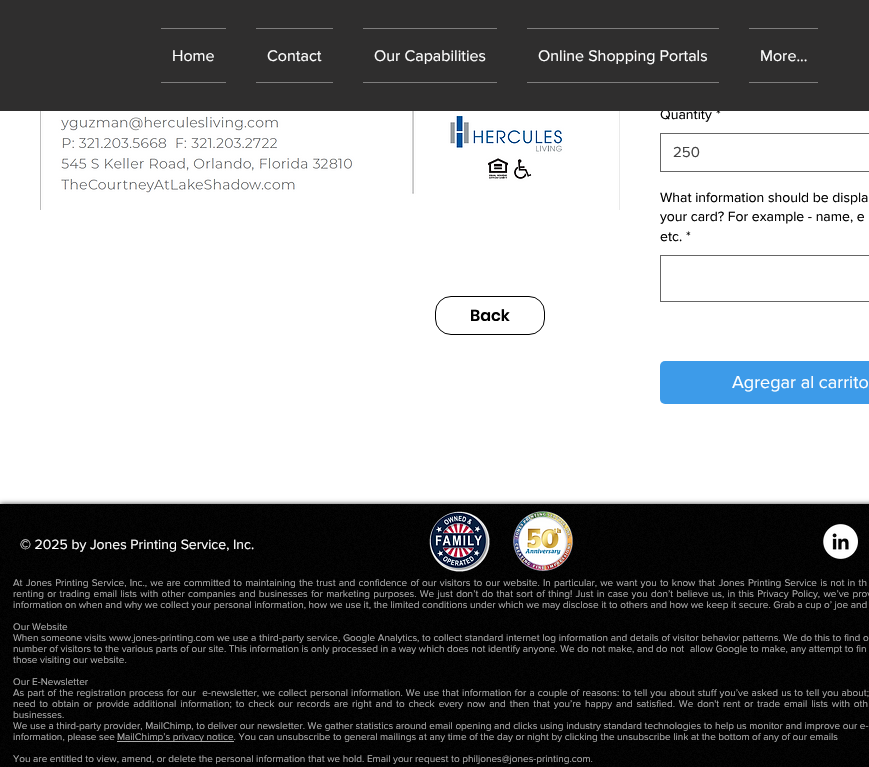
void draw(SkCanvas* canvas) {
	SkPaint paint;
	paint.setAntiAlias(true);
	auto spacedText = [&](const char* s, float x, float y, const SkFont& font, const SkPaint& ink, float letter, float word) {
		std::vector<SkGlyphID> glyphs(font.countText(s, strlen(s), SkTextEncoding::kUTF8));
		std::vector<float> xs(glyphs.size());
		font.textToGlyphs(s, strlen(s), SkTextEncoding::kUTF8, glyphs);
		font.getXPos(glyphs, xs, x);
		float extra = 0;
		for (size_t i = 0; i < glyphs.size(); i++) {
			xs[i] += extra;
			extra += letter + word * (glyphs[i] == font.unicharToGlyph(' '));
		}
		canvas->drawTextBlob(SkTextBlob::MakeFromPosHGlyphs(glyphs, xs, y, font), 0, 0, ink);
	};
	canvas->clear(0xffffffff);
	SkFont f1(fontMgr->matchFamilyStyle("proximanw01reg", SkFontStyle::Normal()), 14);
	f1.setSubpixel(true);
	paint.setColor(0xff000000);
	canvas->drawString("Quantity", 660, 119, f1, paint);
	canvas->drawString("*", 716, 119, f1, paint);
	paint.setColor(0xff2f2e2e);
	canvas->drawRect(SkRect::MakeXYWH(0, 0, 869, 111), paint);
	paint.setColor(0xff7e7d7d);
	canvas->drawRect(SkRect::MakeXYWH(161, 28, 65, 1), paint);
	canvas->drawRect(SkRect::MakeXYWH(161, 82, 65, 1), paint);
	SkFont f2(fontMgr->matchFamilyStyle("proximanw01reg", SkFontStyle::Normal()), 16);
	f2.setSubpixel(true);
	paint.setColor(0xffffffff);
	canvas->drawString("Home", 172, 61, f2, paint);
	paint.setColor(0xff7e7d7d);
	canvas->drawRect(SkRect::MakeXYWH(256, 28, 77, 1), paint);
	canvas->drawRect(SkRect::MakeXYWH(256, 82, 77, 1), paint);
	paint.setColor(0xffffffff);
	canvas->drawString("Contact", 267, 61, f2, paint);
	paint.setColor(0xff7e7d7d);
	canvas->drawRect(SkRect::MakeXYWH(363, 28, 134, 1), paint);
	canvas->drawRect(SkRect::MakeXYWH(363, 82, 134, 1), paint);
	paint.setColor(0xffffffff);
	canvas->drawString("Our Capabilities", 374, 61, f2, paint);
	paint.setColor(0xff7e7d7d);
	canvas->drawRect(SkRect::MakeXYWH(527, 28, 192, 1), paint);
	canvas->drawRect(SkRect::MakeXYWH(527, 82, 192, 1), paint);
	paint.setColor(0xffffffff);
	canvas->drawString("Online Shopping Portals", 538, 61, f2, paint);
	paint.setColor(0xff7e7d7d);
	canvas->drawRect(SkRect::MakeXYWH(749, 28, 69, 1), paint);
	canvas->drawRect(SkRect::MakeXYWH(749, 82, 69, 1), paint);
	paint.setColor(0xffffffff);
	canvas->drawString("More...", 760, 61, f2, paint);
	paint.setStroke(true);
	paint.setStrokeWidth(1);
	paint.setColor(0xff000000);
	canvas->drawRoundRect(SkRect::MakeXYWH(435.5, 296.5, 109, 38), 15.5, 15.5, paint);
	SkFont f3(fontMgr->matchFamilyStyle("Poppins", SkFontStyle(600, SkFontStyle::kNormal_Width, SkFontStyle::kUpright_Slant)), 16);
	f3.setSubpixel(true);
	paint.setStroke(false);
	canvas->drawString("Back", 470, 321, f3, paint);
	canvas->drawImageRect(SkImages::DeferredFromEncodedData(SkData::MakeFromFileName("img1.png")), SkRect::MakeXYWH(40, 111, 580, 99), SkSamplingOptions());
	paint.setStroke(true);
	paint.setColor(0xff666666);
	canvas->drawRect(SkRect::MakeXYWH(660.5, 133.5, 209, 38), paint);
	SkFont f4(fontMgr->matchFamilyStyle("proximanw01reg", SkFontStyle::Normal()), 15);
	f4.setSubpixel(true);
	paint.setStroke(false);
	paint.setColor(0xff444444);
	canvas->drawString("250", 673, 157, f4, paint);
	paint.setColor(0xff000000);
	canvas->drawString("What information should be displa", 660, 202, f1, paint);
	canvas->drawString("your card? For example - name, e", 660, 221, f1, paint);
	canvas->drawString("etc.", 660, 241, f1, paint);
	canvas->drawString("*", 686, 241, f1, paint);
	paint.setStroke(true);
	paint.setColor(0xff666666);
	canvas->drawRect(SkRect::MakeXYWH(660.5, 255.5, 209, 46), paint);
	paint.setStroke(false);
	paint.setColor(0xff3d9be9);
	canvas->drawRoundRect(SkRect::MakeXYWH(660, 361, 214, 43), 5, 5, paint);
	SkFont f5(fontMgr->matchFamilyStyle("proximanw01reg", SkFontStyle::Normal()), 18);
	f5.setSubpixel(true);
	paint.setColor(0xffffffff);
	canvas->drawString("Agregar al carrito", 732, 388, f5, paint);
	paint.setColor(0xb3000000);
	paint.setMaskFilter(SkMaskFilter::MakeBlur(kNormal_SkBlurStyle, 2.5));
	canvas->drawRect(SkRect::MakeXYWH(0, 504, 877, 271), paint);
	paint.setMaskFilter(nullptr);
	paint.setColor(0xff000000);
	canvas->drawRect(SkRect::MakeXYWH(0, 504, 869, 263), paint);
	canvas->drawImageRect(SkImages::DeferredFromEncodedData(SkData::MakeFromFileName("img2.png")), SkRect::MakeXYWH(0, 504, 869, 263), SkSamplingOptions());
	paint.setColor(0xffffffff);
	canvas->drawString("© 2025 by Jones Printing Service, Inc.", 20, 549, f1, paint);
	canvas->drawImageRect(SkImages::DeferredFromEncodedData(SkData::MakeFromFileName("img3.png")), SkRect::MakeXYWH(429, 511, 61, 61), SkSamplingOptions());
	canvas->drawImageRect(SkImages::DeferredFromEncodedData(SkData::MakeFromFileName("img4.png")), SkRect::MakeXYWH(513, 511, 60, 60), SkSamplingOptions());
	canvas->drawImageRect(SkImages::DeferredFromEncodedData(SkData::MakeFromFileName("img5.png")), SkRect::MakeXYWH(823, 524, 35, 35), SkSamplingOptions());
	SkFont f6(fontMgr->matchFamilyStyle("proximanw01reg", SkFontStyle::Normal()), 10);
	f6.setSubpixel(true);
	paint.setColor(0xffababab);
	spacedText("At Jones Printing Service, Inc., we are committed to maintaining the trust and confidence of our visitors to our website. In particular, we want you to know that Jones Printing Service is not in th", 13, 586, f6, paint, 0, 0.6);
	spacedText("renting or trading email lists with other companies and businesses for marketing purposes. We just don’t do that sort of thing! Just in case you don’t believe us, in this Privacy Policy, we’ve prov", 13, 597, f6, paint, 0, 0.7);
	canvas->drawString("information on when and why we collect your personal information, how we use it, the limited conditions under which we may disclose it to others and how we keep it secure. Grab a cup o’ joe and", 13, 608, f6, paint);
	canvas->drawString("Our Website", 13, 630, f6, paint);
	canvas->drawString("When someone visits", 13, 641, f6, paint);
	canvas->drawString("www.jones-printing.com", 109, 641, f6, paint);
	spacedText("we use a third-party service, Google Analytics, to collect standard internet log information and details of visitor behavior patterns. We do this to find o", 217, 641, f6, paint, 0, 0.1);
	canvas->drawString("number of visitors to the various parts of our site. This information is only processed in a way which does not identify anyone. We do not make, and do not", 13, 652, f6, paint);
	canvas->drawString("allow Google to make, any attempt to fin", 690, 652, f6, paint);
	canvas->drawString("those visiting our website.", 13, 663, f6, paint);
	canvas->drawString("Our E-Newsletter", 13, 685, f6, paint);
	spacedText("As part of the registration process for our  e-newsletter, we collect personal information. We use that information for a couple of reasons: to tell you about stuff you’ve asked us to tell you about;", 13, 696, f6, paint, 0, 0.5);
	spacedText("need to obtain or provide additional information; to check our records are right and to check every now and then that you’re happy and satisfied. We don't rent or trade email lists with oth", 13, 707, f6, paint, 0, 1.3);
	canvas->drawString("businesses.", 13, 718, f6, paint);
	canvas->drawString("We use a third-party provider, MailChimp, to deliver our newsletter. We gather statistics around email opening and clicks using industry standard technologies to help us monitor and improve our e-", 13, 729, f6, paint);
	canvas->drawString("information, please see", 13, 740, f6, paint);
	canvas->drawRect(SkRect::MakeXYWH(117, 741, 117, 1), paint);
	canvas->drawString("MailChimp’s privacy notice. You can unsubscribe to general mailings at any time of the day or night by clicking the unsubscribe link at the bottom of any of our emails", 117, 740, f6, paint);
	canvas->drawString("You are entitled to view, amend, or delete the personal information that we hold. Email your request to philjones@jones-printing.com.", 13, 762, f6, paint);
}
